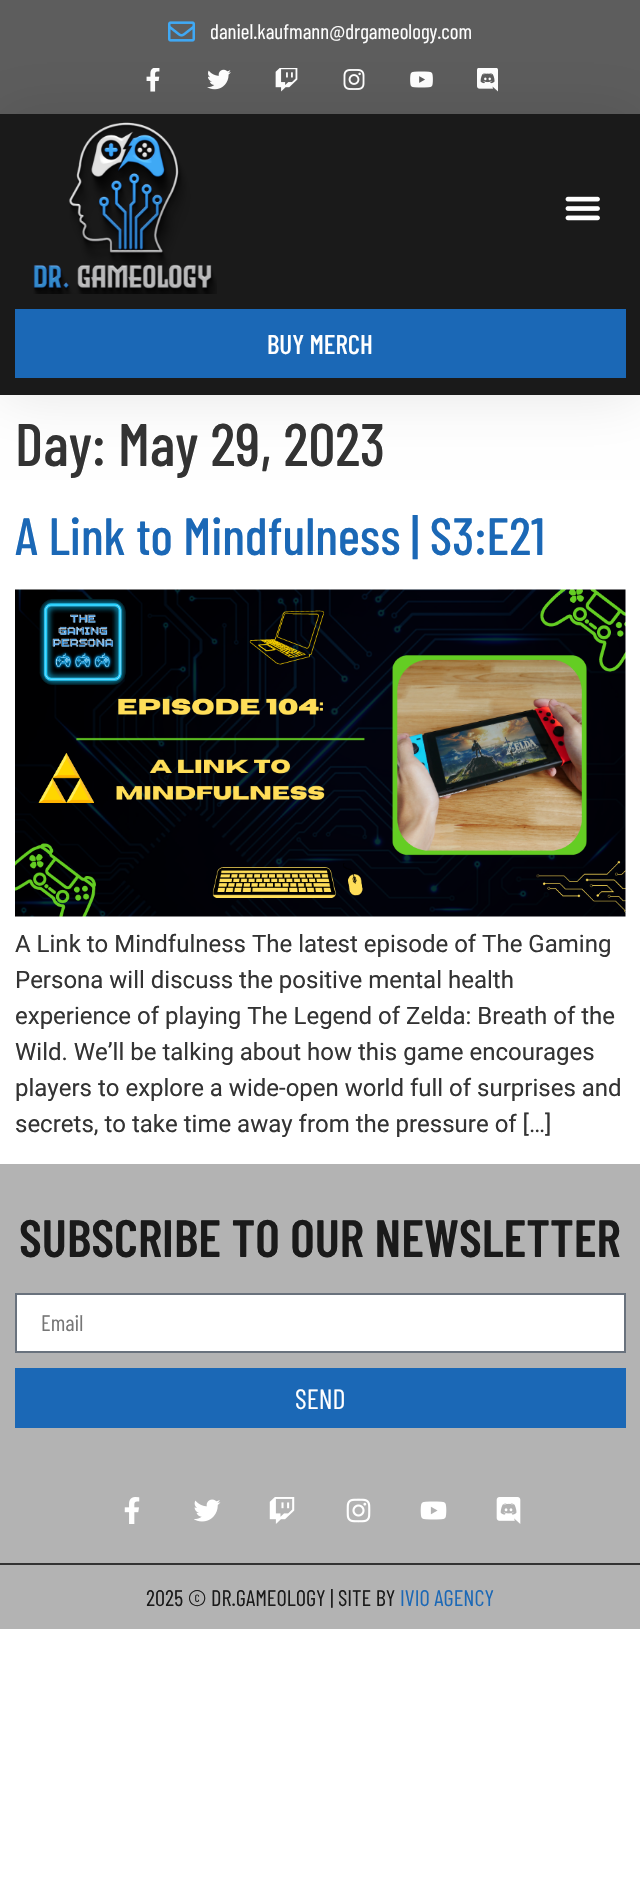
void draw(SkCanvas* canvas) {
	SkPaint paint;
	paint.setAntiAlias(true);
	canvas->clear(0xffffffff);
	paint.setColor(0xff5d5d5d);
	canvas->drawRect(SkRect::MakeXYWH(0, 0, 640, 114), paint);
	canvas->drawImageRect(SkImages::DeferredFromEncodedData(SkData::MakeFromFileName("img1.png")), SkRect::MakeXYWH(168, 21, 27, 21), SkSamplingOptions());
	SkFont f1(fontMgr->matchFamilyStyle("Barlow Condensed", SkFontStyle::Normal()), 21);
	f1.setSubpixel(true);
	paint.setColor(0xffffffff);
	canvas->drawString("daniel.kaufmann@drgameology.com", 210, 39, f1, paint);
	canvas->drawImageRect(SkImages::DeferredFromEncodedData(SkData::MakeFromFileName("img2.png")), SkRect::MakeXYWH(146, 68, 14, 24), SkSamplingOptions());
	canvas->drawImageRect(SkImages::DeferredFromEncodedData(SkData::MakeFromFileName("img3.png")), SkRect::MakeXYWH(207, 69, 24, 21), SkSamplingOptions());
	canvas->drawImageRect(SkImages::DeferredFromEncodedData(SkData::MakeFromFileName("img4.png")), SkRect::MakeXYWH(275, 68, 23, 24), SkSamplingOptions());
	canvas->drawImageRect(SkImages::DeferredFromEncodedData(SkData::MakeFromFileName("img5.png")), SkRect::MakeXYWH(343, 69, 22, 21), SkSamplingOptions());
	canvas->drawImageRect(SkImages::DeferredFromEncodedData(SkData::MakeFromFileName("img6.png")), SkRect::MakeXYWH(410, 71, 23, 17), SkSamplingOptions());
	canvas->drawImageRect(SkImages::DeferredFromEncodedData(SkData::MakeFromFileName("img7.png")), SkRect::MakeXYWH(477, 68, 21, 24), SkSamplingOptions());
	paint.setColor(0x1a000000);
	paint.setMaskFilter(SkMaskFilter::MakeBlur(kNormal_SkBlurStyle, 28.5));
	canvas->drawRect(SkRect::MakeXYWH(0, 114, 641, 281), paint);
	paint.setMaskFilter(nullptr);
	paint.setColor(0xff1a1a1a);
	canvas->drawRect(SkRect::MakeXYWH(0, 114, 640, 281), paint);
	canvas->drawImageRect(SkImages::DeferredFromEncodedData(SkData::MakeFromFileName("img8.png")), SkRect::MakeXYWH(33, 122, 184, 172), SkSamplingOptions());
	canvas->drawImageRect(SkImages::DeferredFromEncodedData(SkData::MakeFromFileName("img9.png")), SkRect::MakeXYWH(565, 196, 35, 25), SkSamplingOptions());
	paint.setColor(0xff1b68b6);
	canvas->drawRect(SkRect::MakeXYWH(15, 309, 611, 69), paint);
	SkFont f2(fontMgr->matchFamilyStyle("Barlow Condensed", SkFontStyle(500, SkFontStyle::kNormal_Width, SkFontStyle::kUpright_Slant)), 27);
	f2.setSubpixel(true);
	paint.setColor(0xffffffff);
	canvas->drawString("BUY MERCH", 267, 354, f2, paint);
	SkFont f3(fontMgr->matchFamilyStyle("Barlow Condensed", SkFontStyle(500, SkFontStyle::kNormal_Width, SkFontStyle::kUpright_Slant)), 60);
	f3.setSubpixel(true);
	paint.setColor(0xff333333);
	canvas->drawString("Day: May 29, 2023", 15, 466, f3, paint);
	SkFont f4(fontMgr->matchFamilyStyle("Barlow Condensed", SkFontStyle(500, SkFontStyle::kNormal_Width, SkFontStyle::kUpright_Slant)), 52.5);
	f4.setSubpixel(true);
	paint.setColor(0xff1b68b6);
	canvas->drawString("A Link to Mindfulness | S3:E21", 15, 555, f4, paint);
	canvas->drawImageRect(SkImages::DeferredFromEncodedData(SkData::MakeFromFileName("img10.png")), SkRect::MakeXYWH(15, 589, 611, 328), SkSamplingOptions());
	SkFont f5(fontMgr->matchFamilyStyle("Roboto", SkFontStyle::Normal()), 24);
	f5.setSubpixel(true);
	paint.setColor(0xff333333);
	canvas->drawString("A Link to Mindfulness The latest episode of The Gaming", 15, 952, f5, paint);
	canvas->drawString("Persona will discuss the positive mental health", 15, 988, f5, paint);
	canvas->drawString("experience of playing The Legend of Zelda: Breath of the", 15, 1024, f5, paint);
	canvas->drawString("Wild. We’ll be talking about how this game encourages", 15, 1060, f5, paint);
	canvas->drawString("players to explore a wide-open world full of surprises and", 15, 1096, f5, paint);
	canvas->drawString("secrets, to take time away from the pressure of […]", 15, 1132, f5, paint);
	paint.setColor(0xffb3b3b3);
	canvas->drawRect(SkRect::MakeXYWH(0, 1164, 640, 399), paint);
	SkFont f6(fontMgr->matchFamilyStyle("Barlow Condensed", SkFontStyle(600, SkFontStyle::kNormal_Width, SkFontStyle::kUpright_Slant)), 52.5);
	f6.setSubpixel(true);
	paint.setColor(0xff1a1a1a);
	canvas->drawString("SUBSCRIBE TO OUR NEWSLETTER", 19, 1257, f6, paint);
	paint.setColor(0xffffffff);
	canvas->drawRect(SkRect::MakeXYWH(16, 1294, 609, 58), paint);
	paint.setStroke(true);
	paint.setStrokeWidth(2);
	paint.setColor(0xff69727d);
	canvas->drawRect(SkRect::MakeXYWH(16, 1294, 609, 58), paint);
	SkFont f7(fontMgr->matchFamilyStyle("Barlow Condensed", SkFontStyle::Normal()), 22.5);
	f7.setSubpixel(true);
	paint.setStroke(false);
	paint.setColor(0xff767676);
	canvas->drawString("Email", 41, 1331, f7, paint);
	paint.setColor(0xff1b68b6);
	canvas->drawRect(SkRect::MakeXYWH(15, 1368, 611, 60), paint);
	SkFont f8(fontMgr->matchFamilyStyle("Barlow Condensed", SkFontStyle::Normal()), 28);
	f8.setSubpixel(true);
	paint.setColor(0xffffffff);
	canvas->drawString("SEND", 295, 1409, f8, paint);
	canvas->drawImageRect(SkImages::DeferredFromEncodedData(SkData::MakeFromFileName("img11.png")), SkRect::MakeXYWH(124, 1497, 16, 27), SkSamplingOptions());
	canvas->drawImageRect(SkImages::DeferredFromEncodedData(SkData::MakeFromFileName("img12.png")), SkRect::MakeXYWH(194, 1499, 27, 23), SkSamplingOptions());
	canvas->drawImageRect(SkImages::DeferredFromEncodedData(SkData::MakeFromFileName("img13.png")), SkRect::MakeXYWH(269, 1497, 26, 27), SkSamplingOptions());
	canvas->drawImageRect(SkImages::DeferredFromEncodedData(SkData::MakeFromFileName("img14.png")), SkRect::MakeXYWH(346, 1498, 25, 25), SkSamplingOptions());
	canvas->drawImageRect(SkImages::DeferredFromEncodedData(SkData::MakeFromFileName("img15.png")), SkRect::MakeXYWH(420, 1501, 27, 19), SkSamplingOptions());
	canvas->drawImageRect(SkImages::DeferredFromEncodedData(SkData::MakeFromFileName("img16.png")), SkRect::MakeXYWH(496, 1497, 25, 27), SkSamplingOptions());
	paint.setColor(0xffb3b3b3);
	canvas->drawRect(SkRect::MakeXYWH(0, 1565, 640, 64), paint);
	paint.setColor(0xff333333);
	canvas->drawRect(SkRect::MakeXYWH(0, 1563, 640, 2), paint);
	paint.setColor(0xff1a1a1a);
	canvas->drawString("2025 © DR.GAMEOLOGY | SITE BY", 146, 1606, f7, paint);
	paint.setColor(0xff1b68b6);
	canvas->drawString("IVIO AGENCY", 400, 1606, f7, paint);
}
